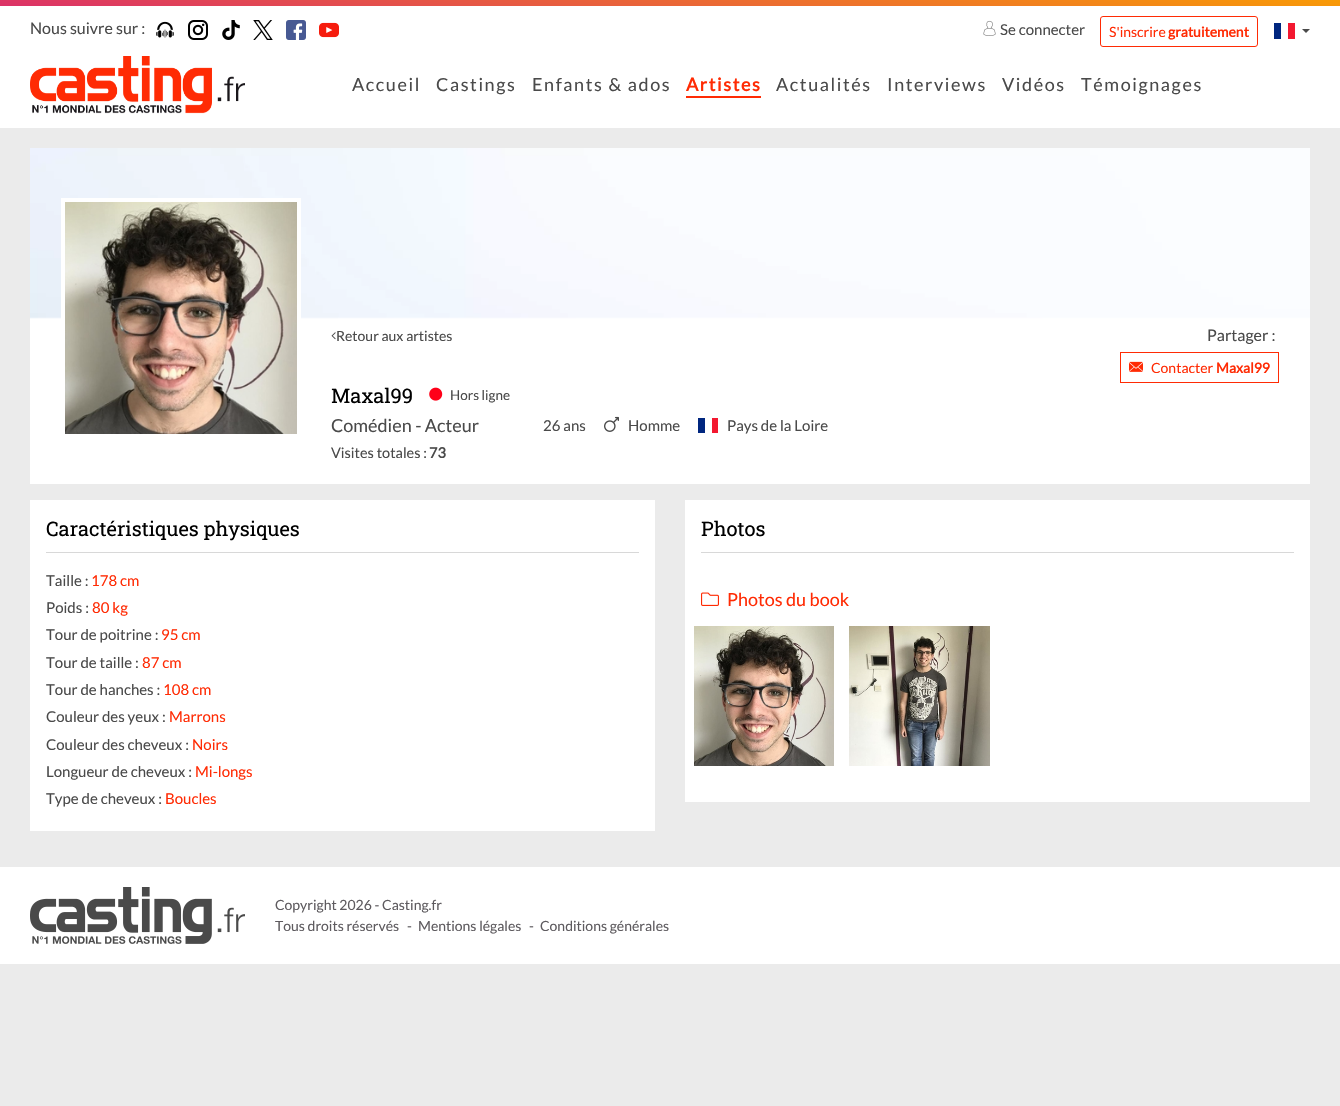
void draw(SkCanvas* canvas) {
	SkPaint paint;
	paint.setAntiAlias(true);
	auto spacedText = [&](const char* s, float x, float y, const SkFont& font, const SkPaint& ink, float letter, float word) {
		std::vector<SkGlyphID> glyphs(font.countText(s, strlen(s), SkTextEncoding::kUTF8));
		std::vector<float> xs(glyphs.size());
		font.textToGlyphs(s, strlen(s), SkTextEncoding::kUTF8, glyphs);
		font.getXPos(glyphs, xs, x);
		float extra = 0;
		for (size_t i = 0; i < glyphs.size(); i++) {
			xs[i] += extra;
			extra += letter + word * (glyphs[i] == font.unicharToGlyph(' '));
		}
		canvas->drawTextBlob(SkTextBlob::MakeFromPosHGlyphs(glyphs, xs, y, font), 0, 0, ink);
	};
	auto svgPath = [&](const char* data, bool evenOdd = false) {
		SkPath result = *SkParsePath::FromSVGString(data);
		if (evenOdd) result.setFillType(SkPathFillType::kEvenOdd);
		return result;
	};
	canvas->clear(0xffebebeb);
	paint.setColor(0xffffffff);
	canvas->drawRect(SkRect::MakeXYWH(0, 6, 1340, 122), paint);
	{
		const SkColor colors[] = {0xfff99c04, 0xffdb3069};
		const float stops[] = {0, 1};
		const SkPoint ends[] = {{680, -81}, {660, 87}};
		paint.setShader(SkGradientShader::MakeLinear(ends, colors, stops, 2, SkTileMode::kClamp));
		paint.setAlpha(255);
	}
	canvas->drawRect(SkRect::MakeXYWH(0, 0, 1340, 6), paint);
	SkFont f1(fontMgr->matchFamilyStyle("Lato", SkFontStyle::Normal()), 16);
	f1.setSubpixel(true);
	paint.setShader(nullptr);
	paint.setColor(0xff4a4a4a);
	canvas->drawString("Nous suivre sur :", 30, 34, f1, paint);
	canvas->drawImageRect(SkImages::DeferredFromEncodedData(SkData::MakeFromFileName("img1.png")), SkRect::MakeXYWH(156, 21, 18, 17), SkSamplingOptions());
	canvas->drawImageRect(SkImages::DeferredFromEncodedData(SkData::MakeFromFileName("img2.png")), SkRect::MakeXYWH(188, 20, 20, 20), SkSamplingOptions());
	canvas->drawImageRect(SkImages::DeferredFromEncodedData(SkData::MakeFromFileName("img3.png")), SkRect::MakeXYWH(222, 20, 18, 20), SkSamplingOptions());
	canvas->drawImageRect(SkImages::DeferredFromEncodedData(SkData::MakeFromFileName("img4.png")), SkRect::MakeXYWH(253, 20, 20, 20), SkSamplingOptions());
	canvas->drawImageRect(SkImages::DeferredFromEncodedData(SkData::MakeFromFileName("img5.png")), SkRect::MakeXYWH(286, 20, 20, 20), SkSamplingOptions());
	canvas->drawImageRect(SkImages::DeferredFromEncodedData(SkData::MakeFromFileName("img6.png")), SkRect::MakeXYWH(319, 22, 20, 16), SkSamplingOptions());
	canvas->drawImageRect(SkImages::DeferredFromEncodedData(SkData::MakeFromFileName("img7.png")), SkRect::MakeXYWH(983, 20, 13, 16), SkSamplingOptions());
	SkFont f2(fontMgr->matchFamilyStyle("Lato", SkFontStyle::Normal()), 15);
	f2.setSubpixel(true);
	canvas->drawString("Se connecter", 1000, 35, f2, paint);
	paint.setStroke(true);
	paint.setStrokeWidth(1);
	paint.setColor(0xffff2b04);
	canvas->drawRoundRect(SkRect::MakeXYWH(1100.5, 16.5, 157, 30), 2.5, 2.5, paint);
	SkFont f3(fontMgr->matchFamilyStyle("Lato", SkFontStyle::Normal()), 14);
	f3.setSubpixel(true);
	paint.setStroke(false);
	canvas->drawString("S'inscrire", 1109, 37, f3, paint);
	SkFont f4(fontMgr->matchFamilyStyle("Lato", SkFontStyle::Bold()), 14);
	f4.setSubpixel(true);
	canvas->drawString("gratuitement", 1168, 37, f4, paint);
	paint.setColor(0xff00267f);
	canvas->drawRect(SkRect::MakeXYWH(1274, 23, 7, 16), paint);
	paint.setColor(0xfff31830);
	canvas->drawRect(SkRect::MakeXYWH(1288, 23, 7, 16), paint);
	paint.setColor(0xff4a4a4a);
	canvas->drawPath(svgPath("M1302 29H1310L1306 33Z"), paint);
	canvas->drawImageRect(SkImages::DeferredFromEncodedData(SkData::MakeFromFileName("img8.png")), SkRect::MakeXYWH(30, 56, 215, 58), SkSamplingOptions());
	SkFont f5(fontMgr->matchFamilyStyle("Lato", SkFontStyle::Normal()), 18);
	f5.setSubpixel(true);
	spacedText("Accueil", 352, 91, f5, paint, 1.6, 0);
	spacedText("Castings", 436, 91, f5, paint, 1.6, 0);
	spacedText("Enfants & ados", 532, 91, f5, paint, 1.6, 0);
	SkFont f6(fontMgr->matchFamilyStyle("Lato", SkFontStyle::Bold()), 18);
	f6.setSubpixel(true);
	paint.setColor(0xffff2b04);
	spacedText("Artistes", 686, 91, f6, paint, 1.6, 0);
	canvas->drawRect(SkRect::MakeXYWH(686, 96, 75, 2), paint);
	paint.setColor(0xff4a4a4a);
	spacedText("Actualités", 776, 91, f5, paint, 1.6, 0);
	spacedText("Interviews", 887, 91, f5, paint, 1.6, 0);
	spacedText("Vidéos", 1002, 91, f5, paint, 1.6, 0);
	spacedText("Témoignages", 1081, 91, f5, paint, 1.6, 0);
	paint.setColor(0xffffffff);
	canvas->drawRect(SkRect::MakeXYWH(30, 148, 1280, 336), paint);
	canvas->drawImageRect(SkImages::DeferredFromEncodedData(SkData::MakeFromFileName("img9.png")), SkRect::MakeXYWH(30, 148, 1280, 171), SkSamplingOptions());
	paint.setStroke(true);
	paint.setStrokeWidth(4);
	canvas->drawRect(SkRect::MakeXYWH(63, 200, 236, 236), paint);
	canvas->drawImageRect(SkImages::DeferredFromEncodedData(SkData::MakeFromFileName("img10.png")), SkRect::MakeXYWH(65, 202, 232, 232), SkSamplingOptions());
	canvas->drawImageRect(SkImages::DeferredFromEncodedData(SkData::MakeFromFileName("img11.png")), SkRect::MakeXYWH(331, 332, 5, 8), SkSamplingOptions());
	paint.setStroke(false);
	paint.setColor(0xff4a4a4a);
	canvas->drawString("Retour aux artistes", 336, 341, f3, paint);
	canvas->drawString("Partager :", 1207, 341, f1, paint);
	paint.setStroke(true);
	paint.setStrokeWidth(1);
	paint.setColor(0xffff2b04);
	canvas->drawRect(SkRect::MakeXYWH(1120.5, 352.5, 158, 30), paint);
	canvas->drawImageRect(SkImages::DeferredFromEncodedData(SkData::MakeFromFileName("img12.png")), SkRect::MakeXYWH(1129, 361, 14, 11), SkSamplingOptions());
	paint.setStroke(false);
	canvas->drawString("Contacter", 1151, 373, f3, paint);
	canvas->drawString("Maxal99", 1216, 373, f4, paint);
	SkFont f7(fontMgr->matchFamilyStyle("Roboto Slab", SkFontStyle::Normal()), 20);
	f7.setSubpixel(true);
	paint.setColor(0xff000000);
	canvas->drawString("Maxal99", 331, 403, f7, paint);
	canvas->drawImageRect(SkImages::DeferredFromEncodedData(SkData::MakeFromFileName("img13.png")), SkRect::MakeXYWH(429, 387, 14, 14), SkSamplingOptions());
	SkFont f8(fontMgr->matchFamilyStyle("Lato", SkFontStyle::Normal()), 13.5);
	f8.setSubpixel(true);
	paint.setColor(0xff4a4a4a);
	canvas->drawString("Hors ligne", 450, 400, f8, paint);
	canvas->drawString("Comédien - Acteur", 331, 432, f5, paint);
	canvas->drawString("26 ans", 543, 431, f2, paint);
	canvas->drawImageRect(SkImages::DeferredFromEncodedData(SkData::MakeFromFileName("img14.png")), SkRect::MakeXYWH(604, 416, 15, 16), SkSamplingOptions());
	canvas->drawString("Homme", 628, 431, f2, paint);
	paint.setColor(0xff00267f);
	canvas->drawRect(SkRect::MakeXYWH(698, 418, 7, 15), paint);
	paint.setColor(0xfff31830);
	canvas->drawRect(SkRect::MakeXYWH(712, 418, 6, 15), paint);
	paint.setColor(0xff4a4a4a);
	canvas->drawString("Pays de la Loire", 727, 431, f2, paint);
	SkFont f9(fontMgr->matchFamilyStyle("Lato", SkFontStyle::Normal()), 14.5);
	f9.setSubpixel(true);
	canvas->drawString("Visites totales :", 331, 458, f9, paint);
	SkFont f10(fontMgr->matchFamilyStyle("Lato", SkFontStyle::Bold()), 14.5);
	f10.setSubpixel(true);
	canvas->drawString("73", 429, 458, f10, paint);
	paint.setColor(0xffffffff);
	canvas->drawRect(SkRect::MakeXYWH(30, 500, 625, 331), paint);
	paint.setColor(0xff000000);
	canvas->drawString("Caractéristiques physiques", 46, 536, f7, paint);
	paint.setColor(0xffd8d8d8);
	canvas->drawRect(SkRect::MakeXYWH(46, 552, 593, 1), paint);
	paint.setColor(0xff4a4a4a);
	canvas->drawString("Taille :", 46, 586, f2, paint);
	paint.setColor(0xffff2b04);
	canvas->drawString("178 cm", 91, 586, f2, paint);
	paint.setColor(0xff4a4a4a);
	canvas->drawString("Poids :", 46, 613, f2, paint);
	paint.setColor(0xffff2b04);
	canvas->drawString("80 kg", 92, 613, f2, paint);
	paint.setColor(0xff4a4a4a);
	canvas->drawString("Tour de poitrine :", 46, 640, f2, paint);
	paint.setColor(0xffff2b04);
	canvas->drawString("95 cm", 161, 640, f2, paint);
	paint.setColor(0xff4a4a4a);
	canvas->drawString("Tour de taille :", 46, 668, f2, paint);
	paint.setColor(0xffff2b04);
	canvas->drawString("87 cm", 142, 668, f2, paint);
	paint.setColor(0xff4a4a4a);
	canvas->drawString("Tour de hanches :", 46, 695, f2, paint);
	paint.setColor(0xffff2b04);
	canvas->drawString("108 cm", 163, 695, f2, paint);
	paint.setColor(0xff4a4a4a);
	canvas->drawString("Couleur des yeux :", 46, 722, f2, paint);
	paint.setColor(0xffff2b04);
	canvas->drawString("Marrons", 169, 722, f2, paint);
	paint.setColor(0xff4a4a4a);
	canvas->drawString("Couleur des cheveux :", 46, 750, f2, paint);
	paint.setColor(0xffff2b04);
	canvas->drawString("Noirs", 192, 750, f2, paint);
	paint.setColor(0xff4a4a4a);
	canvas->drawString("Longueur de cheveux :", 46, 777, f2, paint);
	paint.setColor(0xffff2b04);
	canvas->drawString("Mi-longs", 195, 777, f2, paint);
	paint.setColor(0xff4a4a4a);
	canvas->drawString("Type de cheveux :", 46, 804, f2, paint);
	paint.setColor(0xffff2b04);
	canvas->drawString("Boucles", 165, 804, f2, paint);
	paint.setColor(0xffffffff);
	canvas->drawRect(SkRect::MakeXYWH(685, 500, 625, 302), paint);
	paint.setColor(0xff000000);
	canvas->drawString("Photos", 701, 536, f7, paint);
	paint.setColor(0xffd8d8d8);
	canvas->drawRect(SkRect::MakeXYWH(701, 552, 593, 1), paint);
	canvas->drawImageRect(SkImages::DeferredFromEncodedData(SkData::MakeFromFileName("img15.png")), SkRect::MakeXYWH(701, 592, 18, 14), SkSamplingOptions());
	paint.setColor(0xffff2b04);
	canvas->drawString("Photos du book", 727, 606, f5, paint);
	canvas->drawImageRect(SkImages::DeferredFromEncodedData(SkData::MakeFromFileName("img16.png")), SkRect::MakeXYWH(694, 626, 140, 140), SkSamplingOptions());
	canvas->drawImageRect(SkImages::DeferredFromEncodedData(SkData::MakeFromFileName("img17.png")), SkRect::MakeXYWH(849, 626, 141, 140), SkSamplingOptions());
	paint.setColor(0xffffffff);
	canvas->drawRect(SkRect::MakeXYWH(0, 867, 1340, 97), paint);
	canvas->drawImageRect(SkImages::DeferredFromEncodedData(SkData::MakeFromFileName("img18.png")), SkRect::MakeXYWH(30, 887, 215, 57), SkSamplingOptions());
	paint.setColor(0xff5e5b5f);
	canvas->drawString("Copyright 2026 - Casting.fr", 275, 910, f3, paint);
	canvas->drawString("Tous droits réservés", 275, 931, f3, paint);
	canvas->drawString("-", 407, 931, f3, paint);
	canvas->drawString("Mentions légales", 418, 931, f3, paint);
	canvas->drawString("-", 529, 931, f3, paint);
	canvas->drawString("Conditions générales", 540, 931, f3, paint);
}
